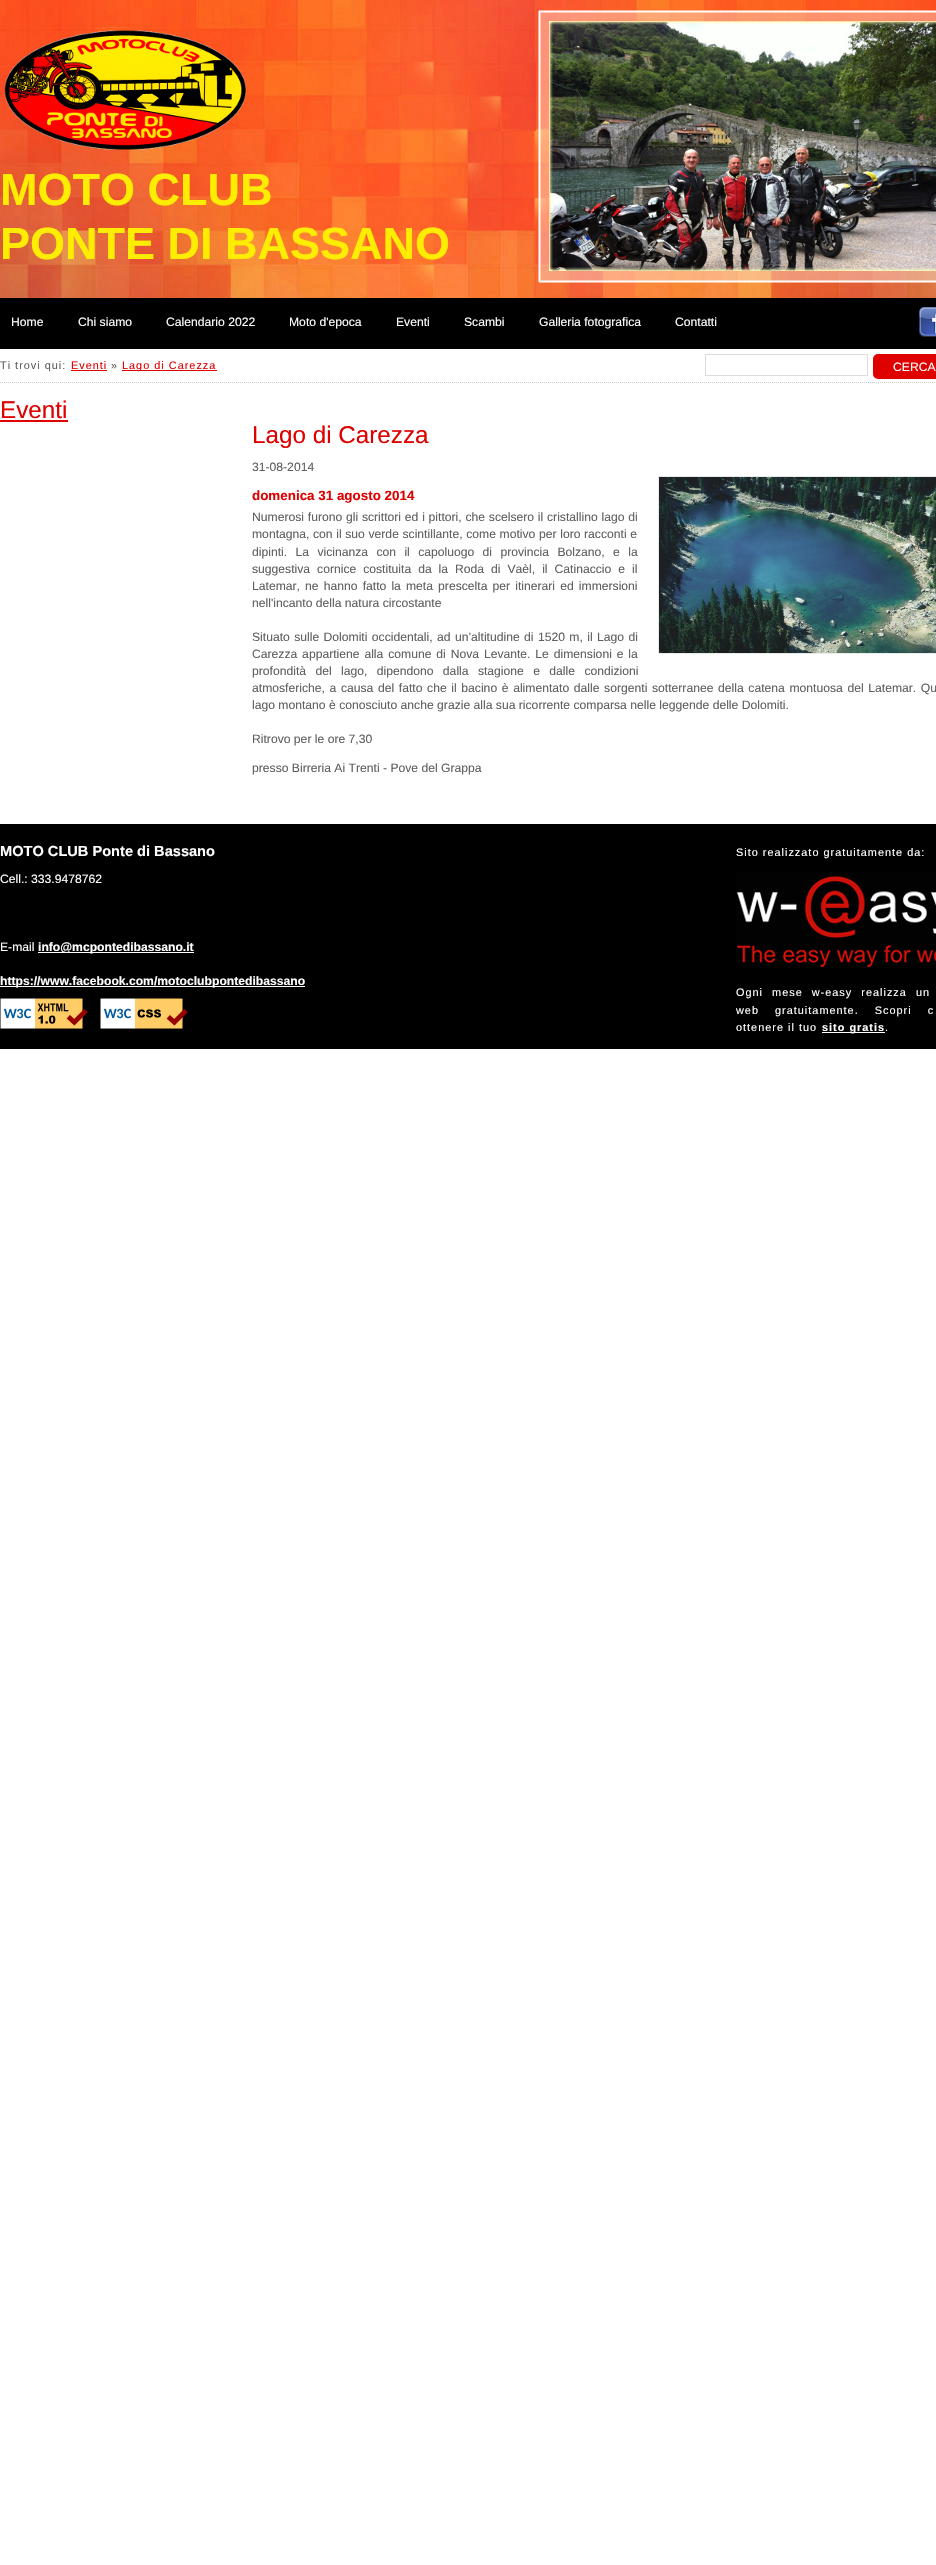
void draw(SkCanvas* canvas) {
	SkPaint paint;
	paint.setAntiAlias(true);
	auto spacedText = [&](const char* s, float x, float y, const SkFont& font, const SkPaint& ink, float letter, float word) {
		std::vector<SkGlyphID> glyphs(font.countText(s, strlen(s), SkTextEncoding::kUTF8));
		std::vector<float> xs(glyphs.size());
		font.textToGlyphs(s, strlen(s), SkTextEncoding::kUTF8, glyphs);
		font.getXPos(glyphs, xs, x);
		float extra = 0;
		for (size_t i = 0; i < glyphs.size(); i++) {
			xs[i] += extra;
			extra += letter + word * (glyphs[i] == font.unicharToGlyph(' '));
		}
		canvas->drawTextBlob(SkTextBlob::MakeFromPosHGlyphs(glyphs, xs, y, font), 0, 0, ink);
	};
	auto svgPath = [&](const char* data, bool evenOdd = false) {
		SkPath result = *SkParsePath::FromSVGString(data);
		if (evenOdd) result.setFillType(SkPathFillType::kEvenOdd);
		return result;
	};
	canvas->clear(0xffffffff);
	canvas->drawImageRect(SkImages::DeferredFromEncodedData(SkData::MakeFromFileName("img1.png")), SkRect::MakeXYWH(0, 0, 936, 298), SkSamplingOptions());
	canvas->drawImageRect(SkImages::DeferredFromEncodedData(SkData::MakeFromFileName("img2.png")), SkRect::MakeXYWH(4, 30, 242, 120), SkSamplingOptions());
	canvas->drawImageRect(SkImages::DeferredFromEncodedData(SkData::MakeFromFileName("img4.png")), SkRect::MakeXYWH(550, 22, 386, 249), SkSamplingOptions());
	canvas->drawImageRect(SkImages::DeferredFromEncodedData(SkData::MakeFromFileName("img3.png")), SkRect::MakeXYWH(538, 10, 398, 273), SkSamplingOptions());
	SkFont f1(fontMgr->matchFamilyStyle("Liberation Sans", SkFontStyle::Bold()), 45);
	f1.setSubpixel(true);
	paint.setColor(0xffffed01);
	canvas->drawString("MOTO CLUB", 0, 205, f1, paint);
	canvas->drawString("PONTE DI BASSANO", 0, 259, f1, paint);
	paint.setColor(0xff000000);
	canvas->drawRect(SkRect::MakeXYWH(0, 298, 936, 51), paint);
	SkFont f2(fontMgr->matchFamilyStyle("Liberation Sans", SkFontStyle::Normal()), 12.15);
	f2.setSubpixel(true);
	paint.setColor(0xffffffff);
	canvas->drawString("Home", 11, 326, f2, paint);
	canvas->drawString("Chi siamo", 78, 326, f2, paint);
	canvas->drawString("Calendario 2022", 166, 326, f2, paint);
	canvas->drawString("Moto d'epoca", 289, 326, f2, paint);
	canvas->drawString("Eventi", 396, 326, f2, paint);
	canvas->drawString("Scambi", 464, 326, f2, paint);
	canvas->drawString("Galleria fotografica", 539, 326, f2, paint);
	canvas->drawString("Contatti", 675, 326, f2, paint);
	canvas->drawImageRect(SkImages::DeferredFromEncodedData(SkData::MakeFromFileName("img5.png")), SkRect::MakeXYWH(919, 307, 17, 30), SkSamplingOptions());
	paint.setStroke(true);
	paint.setStrokeWidth(1);
	paint.setColor(0xffcccccc);
	paint.setPathEffect(SkDashPathEffect::Make({{1, 1}}, 0));
	canvas->drawPath(svgPath("M0 382.5H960"), paint);
	paint.setPathEffect(nullptr);
	SkFont f3(fontMgr->matchFamilyStyle("Liberation Sans", SkFontStyle::Normal()), 10.9);
	f3.setSubpixel(true);
	paint.setStroke(false);
	paint.setColor(0xff5f5f5f);
	spacedText("Ti trovi qui:", 0, 369, f3, paint, 1, 0);
	paint.setColor(0xffdf0000);
	spacedText("Eventi", 71, 369, f3, paint, 1, 0);
	canvas->drawRect(SkRect::MakeXYWH(71, 370, 36, 1), paint);
	paint.setColor(0xff5f5f5f);
	spacedText("»", 111, 369, f3, paint, 1, 0);
	paint.setColor(0xffdf0000);
	canvas->drawRect(SkRect::MakeXYWH(122, 370, 95, 1), paint);
	spacedText("Lago di Carezza", 122, 369, f3, paint, 1, 0);
	paint.setStroke(true);
	paint.setColor(0xffdcdcdc);
	canvas->drawRect(SkRect::MakeXYWH(705.5, 354.5, 162, 21), paint);
	paint.setStroke(false);
	paint.setColor(0xffdf0000);
	canvas->drawRoundRect(SkRect::MakeXYWH(873, 354, 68, 25), 5, 5, paint);
	paint.setColor(0xffffffff);
	canvas->drawString("CERCA", 893, 371, f2, paint);
	SkFont f4(fontMgr->matchFamilyStyle("Liberation Sans", SkFontStyle::Normal()), 24.25);
	f4.setSubpixel(true);
	paint.setColor(0xffdf0000);
	canvas->drawString("Eventi", 0, 418, f4, paint);
	canvas->drawRect(SkRect::MakeXYWH(0, 420, 68, 2), paint);
	canvas->drawString("Lago di Carezza", 252, 443, f4, paint);
	paint.setColor(0xff5f5f5f);
	canvas->drawString("31-08-2014", 252, 471, f2, paint);
	SkFont f5(fontMgr->matchFamilyStyle("Liberation Sans", SkFontStyle::Bold()), 13.4);
	f5.setSubpixel(true);
	paint.setColor(0xffdf0000);
	canvas->drawString("domenica 31 agosto 2014", 252, 500, f5, paint);
	paint.setStroke(true);
	paint.setColor(0xffe9e9e9);
	canvas->drawRect(SkRect::MakeXYWH(658.5, 476.5, 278, 177), paint);
	canvas->drawImageRect(SkImages::DeferredFromEncodedData(SkData::MakeFromFileName("img6.png")), SkRect::MakeXYWH(659, 477, 277, 176), SkSamplingOptions());
	paint.setStroke(false);
	paint.setColor(0xff5f5f5f);
	spacedText("Numerosi furono gli scrittori ed i pittori, che scelsero il cristallino lago di", 252, 521, f2, paint, 0, 0.4);
	spacedText("montagna, con il suo verde scintillante, come motivo per loro racconti e", 252, 538, f2, paint, 0, 0.25);
	spacedText("dipinti. La vicinanza con il capoluogo di provincia Bolzano, e la", 252, 556, f2, paint, 0, 5);
	spacedText("suggestiva cornice costituita da la Roda di Vaèl, il Catinaccio e il", 252, 573, f2, paint, 0, 3.6);
	spacedText("Latemar, ne hanno fatto la meta prescelta per itinerari ed immersioni", 252, 590, f2, paint, 0, 1.75);
	canvas->drawString("nell'incanto della natura circostante", 252, 607, f2, paint);
	spacedText("Situato sulle Dolomiti occidentali, ad un’altitudine di 1520 m, il Lago di", 252, 641, f2, paint, 0, 1);
	spacedText("Carezza appartiene alla comune di Nova Levante. Le dimensioni e la", 252, 658, f2, paint, 0, 1.5);
	spacedText("profondità del lago, dipendono dalla stagione e dalle condizioni", 252, 675, f2, paint, 0, 6);
	spacedText("atmosferiche, a causa del fatto che il bacino è alimentato dalle sorgenti sotterranee della catena montuosa del Latemar. Qu", 252, 692, f2, paint, 0, 1.25);
	canvas->drawString("lago montano è conosciuto anche grazie alla sua ricorrente comparsa nelle leggende delle Dolomiti.", 252, 709, f2, paint);
	canvas->drawString("Ritrovo per le ore 7,30", 252, 743, f2, paint);
	canvas->drawString("presso Birreria Ai Trenti - Pove del Grappa", 252, 772, f2, paint);
	paint.setColor(0xff000000);
	canvas->drawRect(SkRect::MakeXYWH(0, 824, 936, 225), paint);
	SkFont f6(fontMgr->matchFamilyStyle("Liberation Sans", SkFontStyle::Bold()), 14.6);
	f6.setSubpixel(true);
	paint.setColor(0xffffffff);
	canvas->drawString("MOTO CLUB Ponte di Bassano", 0, 856, f6, paint);
	canvas->drawString("Cell.: 333.9478762", 0, 883, f2, paint);
	canvas->drawString("E-mail", 0, 951, f2, paint);
	canvas->drawRect(SkRect::MakeXYWH(38, 952, 156, 1), paint);
	SkFont f7(fontMgr->matchFamilyStyle("Liberation Sans", SkFontStyle::Bold()), 12.15);
	f7.setSubpixel(true);
	canvas->drawString("info@mcpontedibassano.it", 38, 951, f7, paint);
	canvas->drawRect(SkRect::MakeXYWH(0, 986, 305, 1), paint);
	canvas->drawString("https://www.facebook.com/motoclubpontedibassano", 0, 985, f7, paint);
	canvas->drawImageRect(SkImages::DeferredFromEncodedData(SkData::MakeFromFileName("img7.png")), SkRect::MakeXYWH(0, 998, 88, 31), SkSamplingOptions());
	canvas->drawImageRect(SkImages::DeferredFromEncodedData(SkData::MakeFromFileName("img8.png")), SkRect::MakeXYWH(100, 998, 88, 31), SkSamplingOptions());
	spacedText("Sito realizzato gratuitamente da:", 736, 856, f3, paint, 1, 0);
	canvas->drawImageRect(SkImages::DeferredFromEncodedData(SkData::MakeFromFileName("img9.png")), SkRect::MakeXYWH(736, 873, 200, 95), SkSamplingOptions());
	spacedText("Ogni mese w-easy realizza un", 736, 996, f3, paint, 1, 5);
	spacedText("web gratuitamente. Scopri c", 736, 1014, f3, paint, 1, 12);
	spacedText("ottenere il tuo", 736, 1031, f3, paint, 1, 0);
	canvas->drawRect(SkRect::MakeXYWH(822, 1032, 63, 1), paint);
	SkFont f8(fontMgr->matchFamilyStyle("Liberation Sans", SkFontStyle::Bold()), 10.9);
	f8.setSubpixel(true);
	spacedText("sito gratis", 822, 1031, f8, paint, 1, 0);
	spacedText(".", 885, 1031, f3, paint, 1, 0);
}
